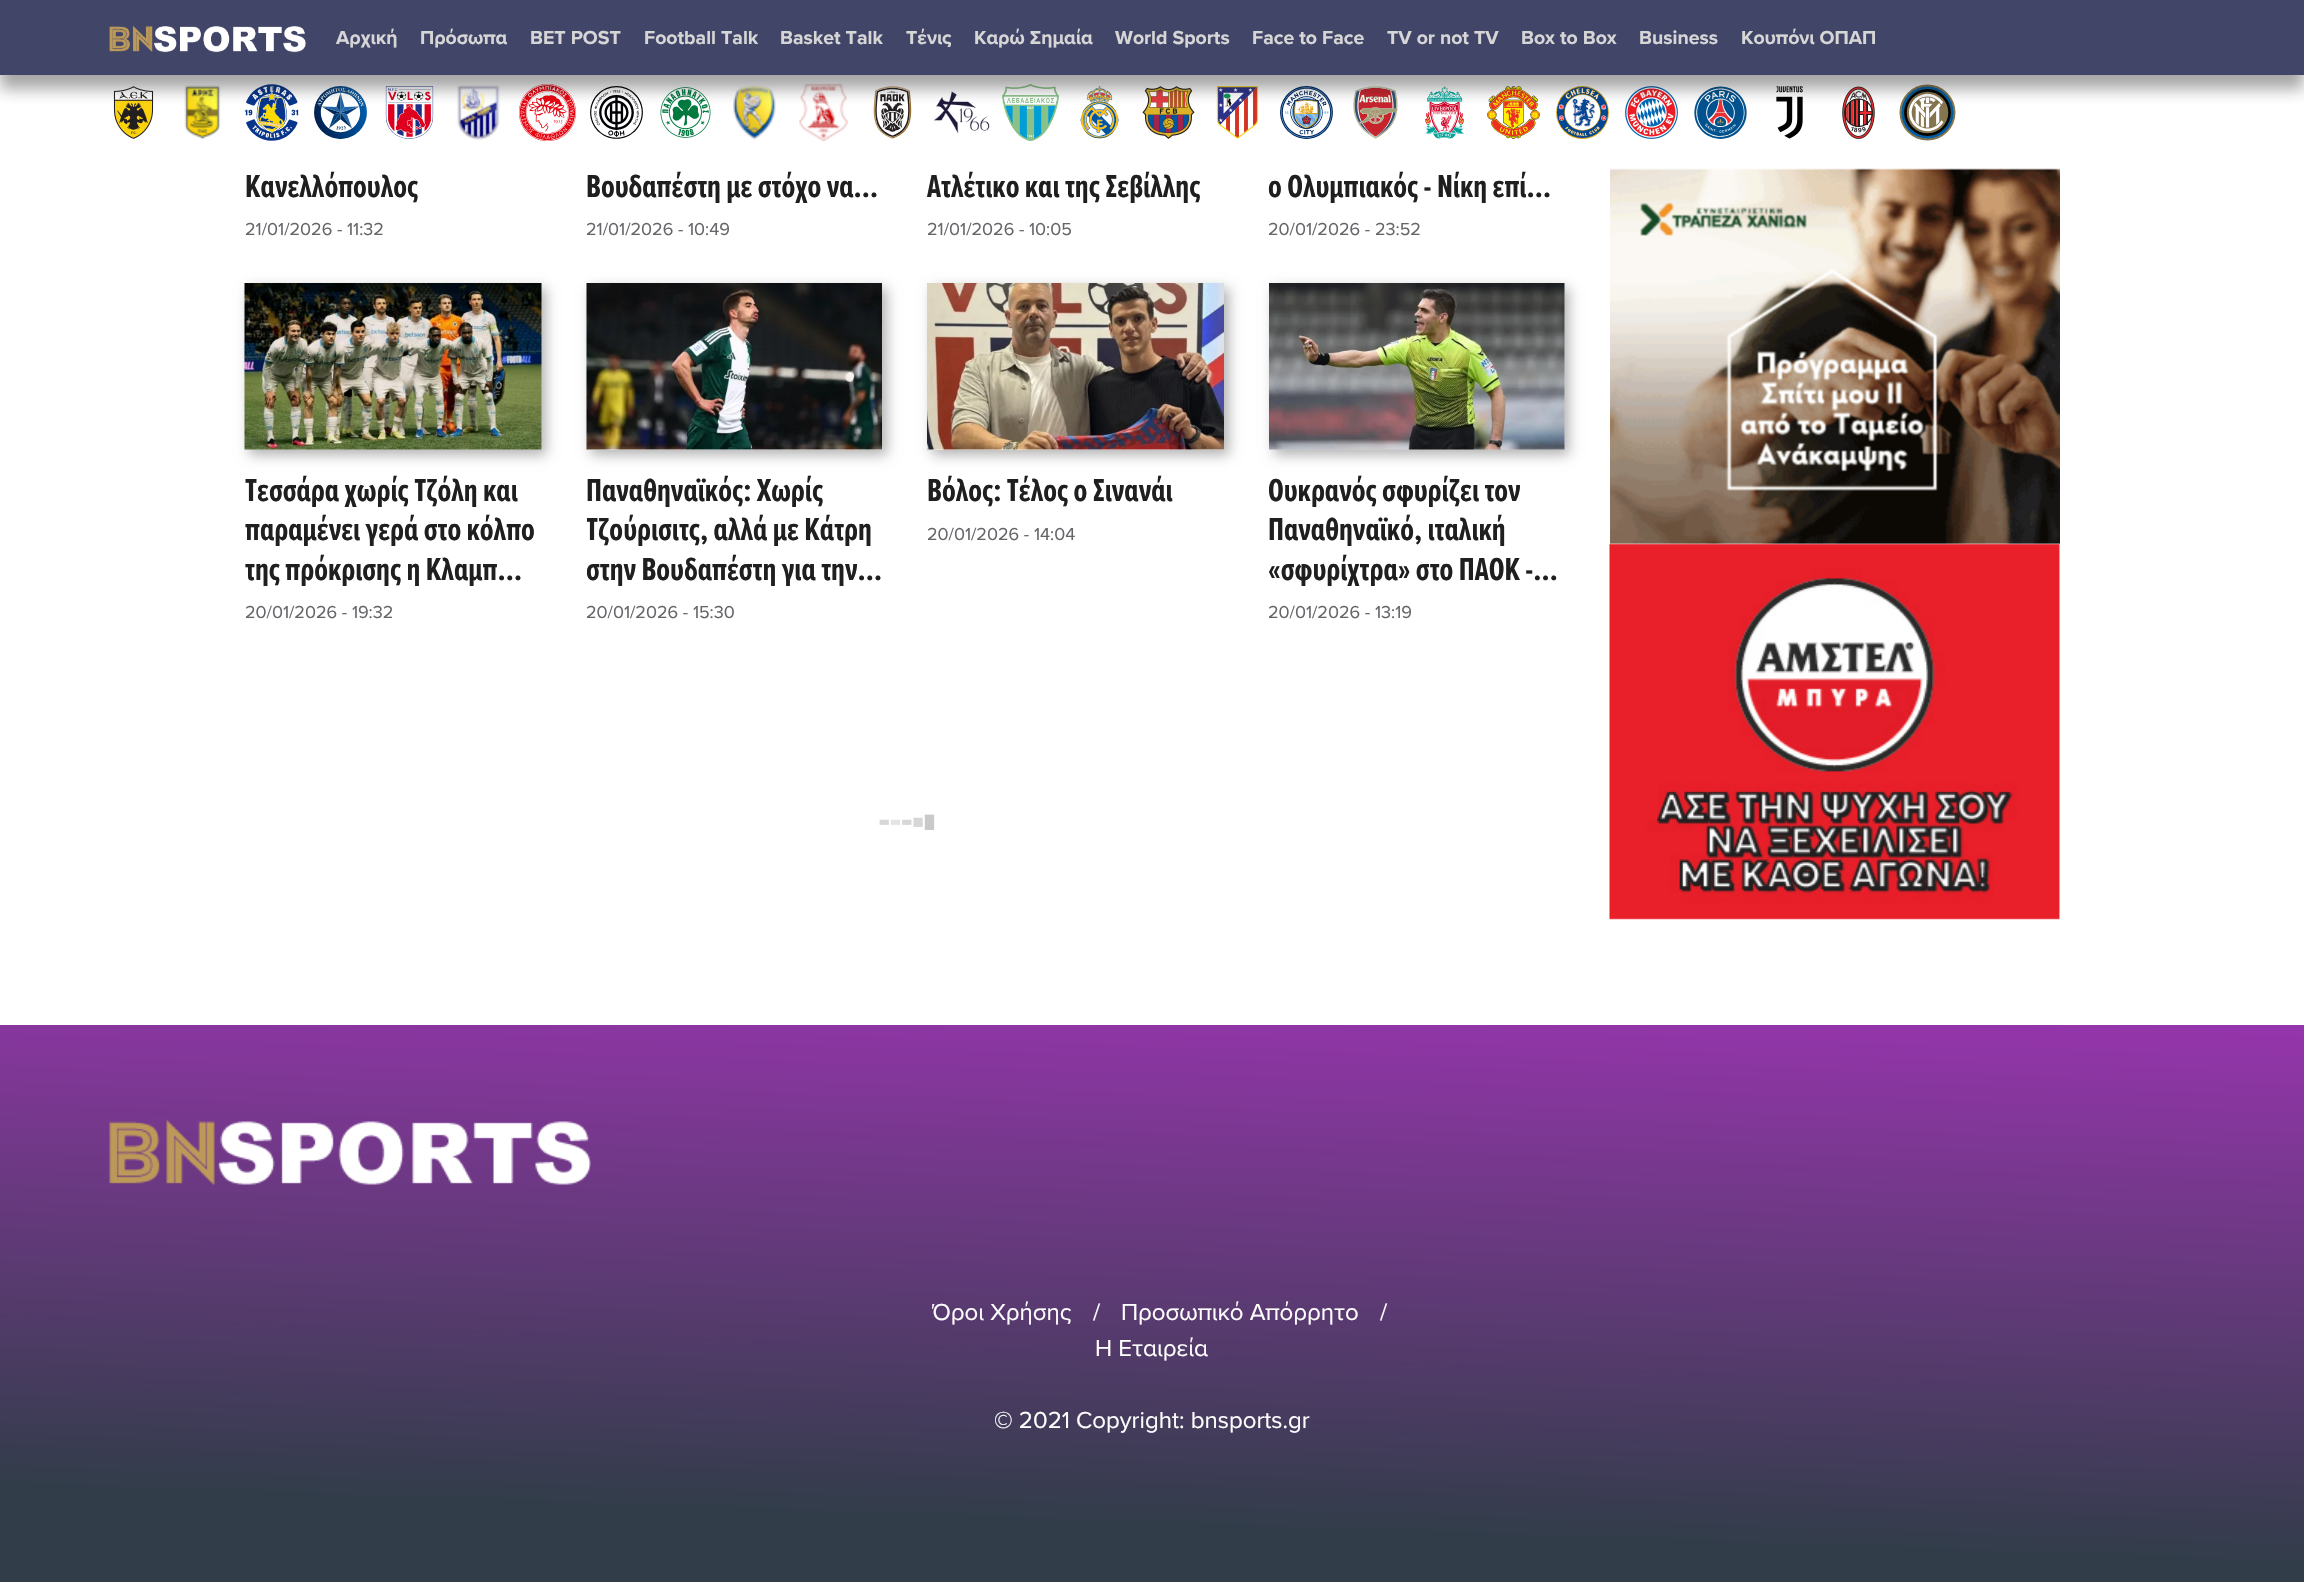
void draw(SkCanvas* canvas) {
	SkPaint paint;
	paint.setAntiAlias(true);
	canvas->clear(0xffffffff);
	canvas->drawImageRect(SkImages::DeferredFromEncodedData(SkData::MakeFromFileName("img2.png")), SkRect::MakeXYWH(113, 86, 41, 53), SkSamplingOptions());
	canvas->drawImageRect(SkImages::DeferredFromEncodedData(SkData::MakeFromFileName("img3.png")), SkRect::MakeXYWH(184, 85, 37, 55), SkSamplingOptions());
	canvas->drawImageRect(SkImages::DeferredFromEncodedData(SkData::MakeFromFileName("img4.png")), SkRect::MakeXYWH(244, 84, 55, 57), SkSamplingOptions());
	canvas->drawImageRect(SkImages::DeferredFromEncodedData(SkData::MakeFromFileName("img5.png")), SkRect::MakeXYWH(314, 86, 53, 53), SkSamplingOptions());
	canvas->drawImageRect(SkImages::DeferredFromEncodedData(SkData::MakeFromFileName("img6.png")), SkRect::MakeXYWH(385, 86, 49, 53), SkSamplingOptions());
	canvas->drawImageRect(SkImages::DeferredFromEncodedData(SkData::MakeFromFileName("img7.png")), SkRect::MakeXYWH(457, 85, 43, 55), SkSamplingOptions());
	canvas->drawImageRect(SkImages::DeferredFromEncodedData(SkData::MakeFromFileName("img8.png")), SkRect::MakeXYWH(519, 84, 57, 57), SkSamplingOptions());
	canvas->drawImageRect(SkImages::DeferredFromEncodedData(SkData::MakeFromFileName("img9.png")), SkRect::MakeXYWH(590, 86, 53, 53), SkSamplingOptions());
	canvas->drawImageRect(SkImages::DeferredFromEncodedData(SkData::MakeFromFileName("img10.png")), SkRect::MakeXYWH(660, 87, 51, 51), SkSamplingOptions());
	canvas->drawImageRect(SkImages::DeferredFromEncodedData(SkData::MakeFromFileName("img11.png")), SkRect::MakeXYWH(733, 85, 43, 55), SkSamplingOptions());
	canvas->drawImageRect(SkImages::DeferredFromEncodedData(SkData::MakeFromFileName("img12.png")), SkRect::MakeXYWH(799, 84, 49, 57), SkSamplingOptions());
	canvas->drawImageRect(SkImages::DeferredFromEncodedData(SkData::MakeFromFileName("img13.png")), SkRect::MakeXYWH(873, 86, 39, 53), SkSamplingOptions());
	canvas->drawImageRect(SkImages::DeferredFromEncodedData(SkData::MakeFromFileName("img14.png")), SkRect::MakeXYWH(933, 91, 57, 43), SkSamplingOptions());
	canvas->drawImageRect(SkImages::DeferredFromEncodedData(SkData::MakeFromFileName("img15.png")), SkRect::MakeXYWH(1002, 84, 57, 57), SkSamplingOptions());
	canvas->drawImageRect(SkImages::DeferredFromEncodedData(SkData::MakeFromFileName("img16.png")), SkRect::MakeXYWH(1080, 86, 39, 53), SkSamplingOptions());
	canvas->drawImageRect(SkImages::DeferredFromEncodedData(SkData::MakeFromFileName("img17.png")), SkRect::MakeXYWH(1142, 86, 53, 53), SkSamplingOptions());
	canvas->drawImageRect(SkImages::DeferredFromEncodedData(SkData::MakeFromFileName("img18.png")), SkRect::MakeXYWH(1216, 86, 43, 53), SkSamplingOptions());
	canvas->drawImageRect(SkImages::DeferredFromEncodedData(SkData::MakeFromFileName("img19.png")), SkRect::MakeXYWH(1280, 86, 53, 53), SkSamplingOptions());
	canvas->drawImageRect(SkImages::DeferredFromEncodedData(SkData::MakeFromFileName("img20.png")), SkRect::MakeXYWH(1353, 86, 45, 53), SkSamplingOptions());
	canvas->drawImageRect(SkImages::DeferredFromEncodedData(SkData::MakeFromFileName("img21.png")), SkRect::MakeXYWH(1425, 86, 39, 53), SkSamplingOptions());
	canvas->drawImageRect(SkImages::DeferredFromEncodedData(SkData::MakeFromFileName("img22.png")), SkRect::MakeXYWH(1487, 86, 53, 53), SkSamplingOptions());
	canvas->drawImageRect(SkImages::DeferredFromEncodedData(SkData::MakeFromFileName("img23.png")), SkRect::MakeXYWH(1556, 86, 53, 53), SkSamplingOptions());
	canvas->drawImageRect(SkImages::DeferredFromEncodedData(SkData::MakeFromFileName("img24.png")), SkRect::MakeXYWH(1625, 86, 53, 53), SkSamplingOptions());
	canvas->drawImageRect(SkImages::DeferredFromEncodedData(SkData::MakeFromFileName("img25.png")), SkRect::MakeXYWH(1694, 86, 53, 53), SkSamplingOptions());
	canvas->drawImageRect(SkImages::DeferredFromEncodedData(SkData::MakeFromFileName("img26.png")), SkRect::MakeXYWH(1776, 86, 27, 53), SkSamplingOptions());
	canvas->drawImageRect(SkImages::DeferredFromEncodedData(SkData::MakeFromFileName("img27.png")), SkRect::MakeXYWH(1842, 86, 33, 53), SkSamplingOptions());
	canvas->drawImageRect(SkImages::DeferredFromEncodedData(SkData::MakeFromFileName("img28.png")), SkRect::MakeXYWH(1899, 84, 57, 57), SkSamplingOptions());
	paint.setColor(0x63181717);
	paint.setMaskFilter(SkMaskFilter::MakeBlur(kNormal_SkBlurStyle, 7.5));
	canvas->drawRect(SkRect::MakeXYWH(0, 14, 2304, 75), paint);
	paint.setMaskFilter(nullptr);
	paint.setColor(0xff414568);
	canvas->drawRect(SkRect::MakeXYWH(0, 0, 2304, 75), paint);
	canvas->drawImageRect(SkImages::DeferredFromEncodedData(SkData::MakeFromFileName("img1.png")), SkRect::MakeXYWH(109, 25, 197, 28), SkSamplingOptions());
	SkFont f1(fontMgr->matchFamilyStyle("Proxima Nova", SkFontStyle::Bold()), 19.5);
	f1.setSubpixel(true);
	paint.setColor(0xffd6d6d6);
	canvas->drawString("Αρχική", 336, 44, f1, paint);
	canvas->drawString("Πρόσωπα", 420, 44, f1, paint);
	canvas->drawString("BET POST", 530, 44, f1, paint);
	canvas->drawString("Football Talk", 644, 44, f1, paint);
	canvas->drawString("Basket Talk", 780, 44, f1, paint);
	canvas->drawString("Τένις", 906, 44, f1, paint);
	canvas->drawString("Καρώ Σημαία", 974, 44, f1, paint);
	canvas->drawString("World Sports", 1115, 44, f1, paint);
	canvas->drawString("Face to Face", 1252, 44, f1, paint);
	canvas->drawString("TV or not TV", 1387, 44, f1, paint);
	canvas->drawString("Box to Box", 1521, 44, f1, paint);
	canvas->drawString("Βusiness", 1639, 44, f1, paint);
	canvas->drawString("Κουπόνι ΟΠΑΠ", 1741, 44, f1, paint);
	SkFont f2(fontMgr->matchFamilyStyle("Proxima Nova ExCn", SkFontStyle::Bold()), 33);
	f2.setSubpixel(true);
	paint.setColor(0xff201f1f);
	canvas->drawString("Κανελλόπουλος", 245, 197, f2, paint);
	SkFont f3(fontMgr->matchFamilyStyle("Proxima Nova", SkFontStyle::Normal()), 18);
	f3.setSubpixel(true);
	paint.setColor(0xff646669);
	canvas->drawString("21/01/2026 - 11:32", 245, 235, f3, paint);
	paint.setColor(0xff201f1f);
	canvas->drawString("Βουδαπέστη με στόχο να…", 586, 197, f2, paint);
	paint.setColor(0xff646669);
	canvas->drawString("21/01/2026 - 10:49", 586, 235, f3, paint);
	paint.setColor(0xff201f1f);
	canvas->drawString("Ατλέτικο και της Σεβίλλης", 927, 197, f2, paint);
	paint.setColor(0xff646669);
	canvas->drawString("21/01/2026 - 10:05", 927, 235, f3, paint);
	paint.setColor(0xff201f1f);
	canvas->drawString("ο Ολυμπιακός - Νίκη επί…", 1268, 197, f2, paint);
	paint.setColor(0xff646669);
	canvas->drawString("20/01/2026 - 23:52", 1268, 235, f3, paint);
	paint.setColor(0xffb3b3b3);
	paint.setMaskFilter(SkMaskFilter::MakeBlur(kNormal_SkBlurStyle, 6));
	canvas->drawRect(SkRect::MakeXYWH(249, 288, 297, 167), paint);
	paint.setMaskFilter(nullptr);
	paint.setColor(0x3be4e4e4);
	canvas->drawRect(SkRect::MakeXYWH(245, 284, 297, 166), paint);
	canvas->drawImageRect(SkImages::DeferredFromEncodedData(SkData::MakeFromFileName("img29.png")), SkRect::MakeXYWH(244, 283, 298, 167), SkSamplingOptions());
	paint.setColor(0xff201f1f);
	canvas->drawString("Τεσσάρα χωρίς Τζόλη και", 245, 501, f2, paint);
	canvas->drawString("παραμένει γερά στο κόλπο", 245, 540, f2, paint);
	canvas->drawString("της πρόκρισης η Κλαμπ…", 245, 580, f2, paint);
	paint.setColor(0xff646669);
	canvas->drawString("20/01/2026 - 19:32", 245, 618, f3, paint);
	paint.setColor(0xffb3b3b3);
	paint.setMaskFilter(SkMaskFilter::MakeBlur(kNormal_SkBlurStyle, 6));
	canvas->drawRect(SkRect::MakeXYWH(591, 288, 296, 167), paint);
	paint.setMaskFilter(nullptr);
	paint.setColor(0xfff9f9f9);
	canvas->drawRect(SkRect::MakeXYWH(587, 449, 295, 1), paint);
	canvas->drawImageRect(SkImages::DeferredFromEncodedData(SkData::MakeFromFileName("img30.png")), SkRect::MakeXYWH(586, 283, 296, 167), SkSamplingOptions());
	paint.setColor(0xff201f1f);
	canvas->drawString("Παναθηναϊκός: Χωρίς", 586, 501, f2, paint);
	canvas->save();
	canvas->clipRect(SkRect::MakeXYWH(587, 474, 295, 117));
	canvas->drawString("Τζούρισιτς, αλλά με Κάτρη", 586, 540, f2, paint);
	canvas->drawString("στην Βουδαπέστη για την…", 586, 580, f2, paint);
	canvas->restore();
	paint.setColor(0xff646669);
	canvas->drawString("20/01/2026 - 15:30", 586, 618, f3, paint);
	paint.setColor(0xffb3b3b3);
	paint.setMaskFilter(SkMaskFilter::MakeBlur(kNormal_SkBlurStyle, 6));
	canvas->drawRect(SkRect::MakeXYWH(932, 288, 297, 167), paint);
	paint.setMaskFilter(nullptr);
	paint.setColor(0xfff9f9f9);
	canvas->drawRect(SkRect::MakeXYWH(927, 449, 297, 1), paint);
	canvas->drawImageRect(SkImages::DeferredFromEncodedData(SkData::MakeFromFileName("img31.png")), SkRect::MakeXYWH(927, 283, 297, 167), SkSamplingOptions());
	paint.setColor(0xff201f1f);
	canvas->drawString("Βόλος: Τέλος ο Σινανάι", 927, 501, f2, paint);
	paint.setColor(0xff646669);
	canvas->drawString("20/01/2026 - 14:04", 927, 540, f3, paint);
	paint.setColor(0xffb3b3b3);
	paint.setMaskFilter(SkMaskFilter::MakeBlur(kNormal_SkBlurStyle, 6));
	canvas->drawRect(SkRect::MakeXYWH(1274, 288, 295, 167), paint);
	paint.setMaskFilter(nullptr);
	paint.setColor(0x3be4e4e4);
	canvas->drawRect(SkRect::MakeXYWH(1269, 284, 296, 166), paint);
	canvas->drawImageRect(SkImages::DeferredFromEncodedData(SkData::MakeFromFileName("img32.png")), SkRect::MakeXYWH(1269, 283, 296, 167), SkSamplingOptions());
	paint.setColor(0xff201f1f);
	canvas->drawString("Ουκρανός σφυρίζει τον", 1268, 501, f2, paint);
	canvas->drawString("Παναθηναϊκό, ιταλική", 1268, 540, f2, paint);
	canvas->drawString("«σφυρίχτρα» στο ΠΑΟΚ -…", 1268, 580, f2, paint);
	paint.setColor(0xff646669);
	canvas->drawString("20/01/2026 - 13:19", 1268, 618, f3, paint);
	canvas->drawImageRect(SkImages::DeferredFromEncodedData(SkData::MakeFromFileName("img33.png")), SkRect::MakeXYWH(879, 814, 56, 16), SkSamplingOptions());
	canvas->drawImageRect(SkImages::DeferredFromEncodedData(SkData::MakeFromFileName("img35.png")), SkRect::MakeXYWH(1609, 543, 451, 377), SkSamplingOptions());
	canvas->drawImageRect(SkImages::DeferredFromEncodedData(SkData::MakeFromFileName("img34.png")), SkRect::MakeXYWH(1610, 168, 450, 376), SkSamplingOptions());
	{
		const SkColor colors[] = {0xff313d49, 0xffbd32d3};
		const float stops[] = {0.11, 1};
		const SkPoint ends[] = {{1141, 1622}, {1170, 774}};
		paint.setShader(SkGradientShader::MakeLinear(ends, colors, stops, 2, SkTileMode::kClamp));
		paint.setAlpha(255);
	}
	canvas->drawRect(SkRect::MakeXYWH(0, 1025, 2304, 557), paint);
	canvas->drawImageRect(SkImages::DeferredFromEncodedData(SkData::MakeFromFileName("img36.png")), SkRect::MakeXYWH(109, 1120, 482, 66), SkSamplingOptions());
	SkFont f4(fontMgr->matchFamilyStyle("Proxima Nova", SkFontStyle::Normal()), 24);
	f4.setSubpixel(true);
	paint.setShader(nullptr);
	paint.setColor(0xffffffff);
	canvas->drawString("Όροι Χρήσης", 932, 1320, f4, paint);
	canvas->drawString("/", 1093, 1320, f4, paint);
	canvas->drawString("Προσωπικό Απόρρητο", 1121, 1320, f4, paint);
	canvas->drawString("/", 1380, 1320, f4, paint);
	canvas->drawString("Η Εταιρεία", 1095, 1356, f4, paint);
	canvas->drawString("© 2021 Copyright: bnsports.gr", 994, 1428, f4, paint);
}
